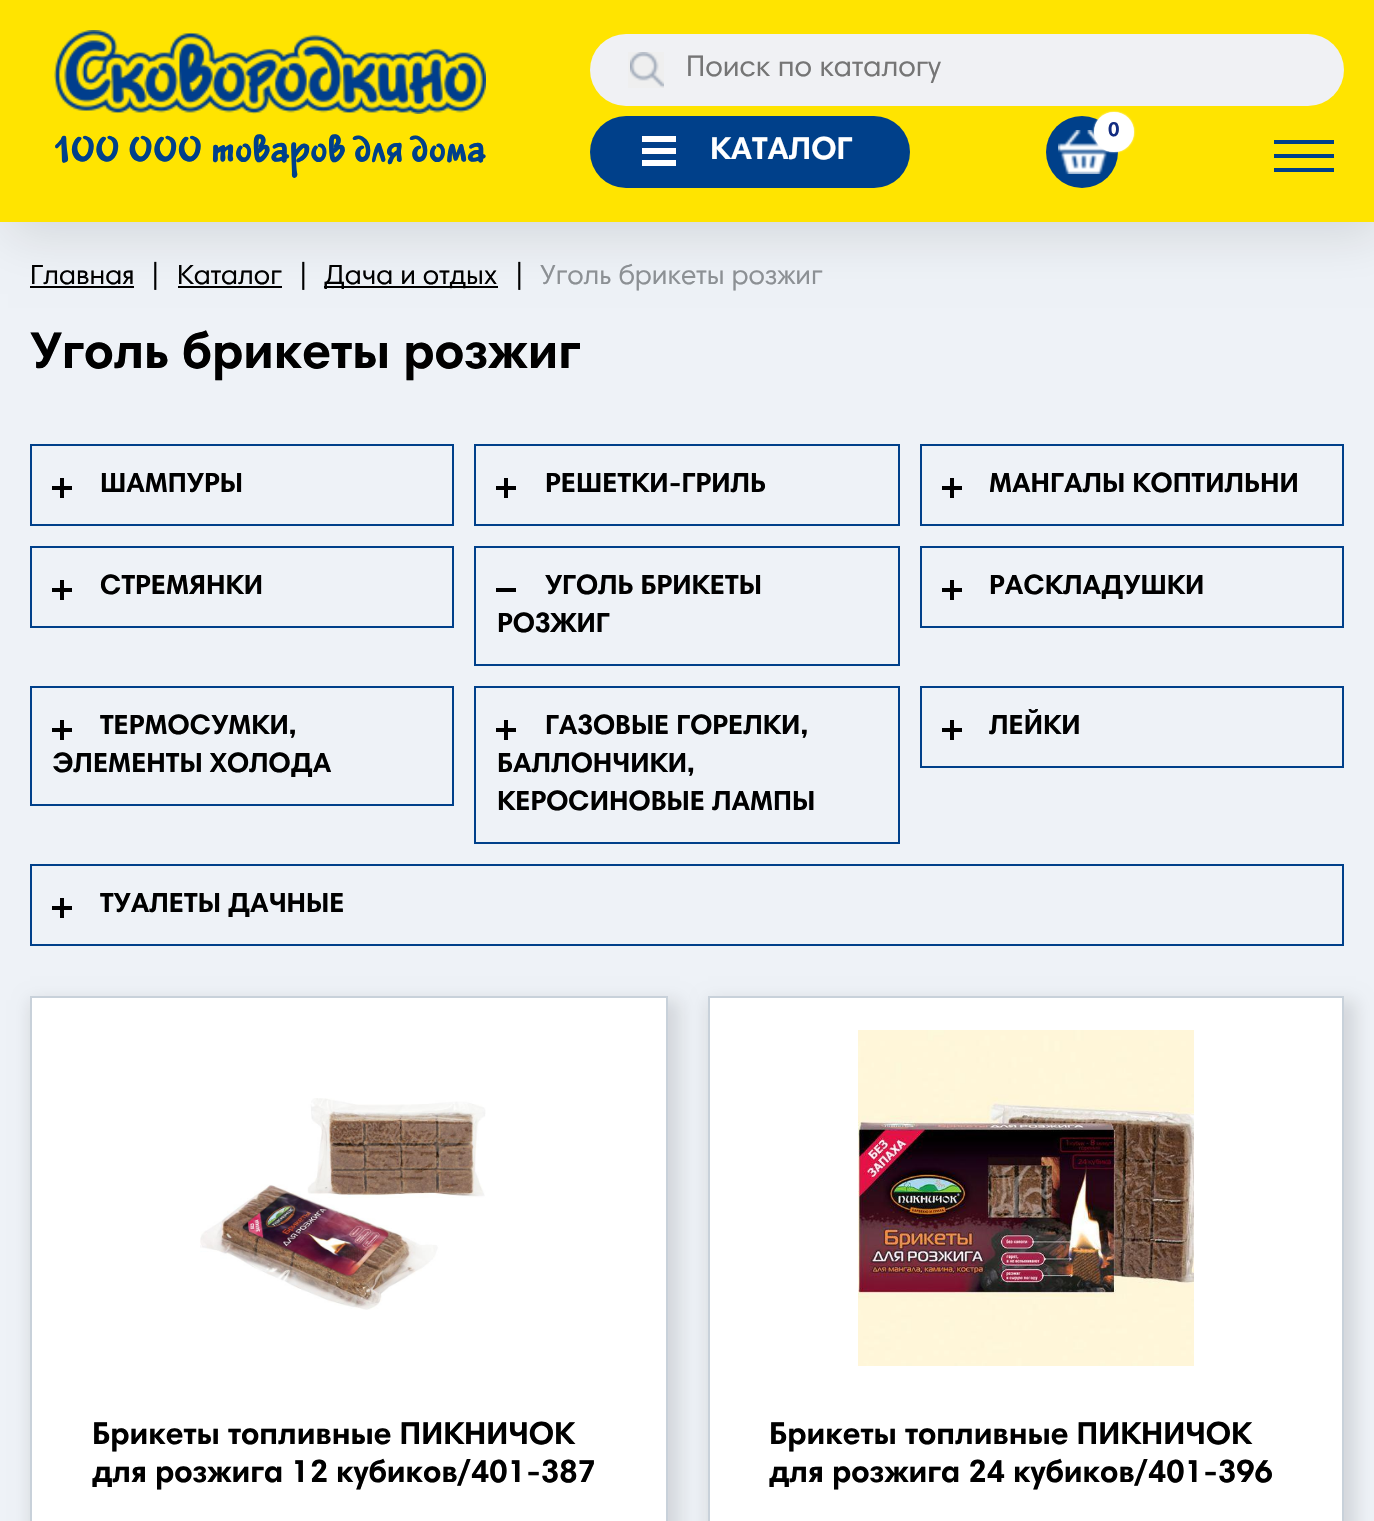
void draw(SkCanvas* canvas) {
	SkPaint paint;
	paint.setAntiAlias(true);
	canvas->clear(0xffeef2f7);
	paint.setColor(0xff000000);
	canvas->drawRect(SkRect::MakeXYWH(30, 286, 104, 2), paint);
	canvas->drawRect(SkRect::MakeXYWH(178, 286, 104, 2), paint);
	canvas->drawRect(SkRect::MakeXYWH(324, 286, 174, 2), paint);
	paint.setColor(0x1c000000);
	paint.setMaskFilter(SkMaskFilter::MakeBlur(kNormal_SkBlurStyle, 24));
	canvas->drawRect(SkRect::MakeXYWH(8, 14, 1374, 222), paint);
	paint.setMaskFilter(nullptr);
	paint.setColor(0xffffe400);
	canvas->drawRect(SkRect::MakeXYWH(0, 0, 1374, 222), paint);
	canvas->drawImageRect(SkImages::DeferredFromEncodedData(SkData::MakeFromFileName("img1.png")), SkRect::MakeXYWH(54, 30, 432, 84), SkSamplingOptions());
	SkFont f1(fontMgr->matchFamilyStyle("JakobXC", SkFontStyle::Normal()), 38);
	f1.setSubpixel(true);
	paint.setColor(0xff00408a);
	canvas->drawString("100 000 товаров для дома", 54, 162, f1, paint);
	paint.setColor(0xfff0f1f4);
	canvas->drawRoundRect(SkRect::MakeXYWH(590, 34, 754, 72), 36, 36, paint);
	paint.setColor(0xffefefef);
	canvas->drawRect(SkRect::MakeXYWH(628, 52, 36, 36), paint);
	canvas->drawImageRect(SkImages::DeferredFromEncodedData(SkData::MakeFromFileName("img2.png")), SkRect::MakeXYWH(630, 52, 34, 36), SkSamplingOptions());
	SkFont f2(fontMgr->matchFamilyStyle("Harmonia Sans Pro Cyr", SkFontStyle::Normal()), 30);
	f2.setSubpixel(true);
	paint.setColor(0xff757575);
	canvas->drawString("Поиск по каталогу", 686, 76, f2, paint);
	paint.setColor(0xff00408a);
	canvas->drawCircle(1082, 152, 36, paint);
	canvas->drawImageRect(SkImages::DeferredFromEncodedData(SkData::MakeFromFileName("img3.png")), SkRect::MakeXYWH(1058, 130, 50, 44), SkSamplingOptions());
	paint.setColor(0xffffffff);
	paint.setMaskFilter(SkMaskFilter::MakeBlur(kNormal_SkBlurStyle, 1));
	canvas->drawRoundRect(SkRect::MakeXYWH(1094, 112, 40, 40), 20, 20, paint);
	paint.setMaskFilter(nullptr);
	canvas->drawCircle(1114, 132, 19, paint);
	paint.setStroke(true);
	paint.setStrokeWidth(2);
	canvas->drawCircle(1114, 132, 19, paint);
	SkFont f3(fontMgr->matchFamilyStyle("Harmonia Sans Pro Cyr", SkFontStyle::Bold()), 20);
	f3.setSubpixel(true);
	paint.setStroke(false);
	paint.setColor(0xff132c81);
	canvas->drawString("0", 1108, 136, f3, paint);
	paint.setColor(0xff00408a);
	canvas->drawRoundRect(SkRect::MakeXYWH(590, 116, 320, 72), 36, 36, paint);
	paint.setColor(0xffffffff);
	canvas->drawRect(SkRect::MakeXYWH(642, 136, 34, 6), paint);
	canvas->drawRect(SkRect::MakeXYWH(642, 148, 34, 6), paint);
	canvas->drawRect(SkRect::MakeXYWH(642, 160, 34, 6), paint);
	SkFont f4(fontMgr->matchFamilyStyle("Harmonia Sans Pro Cyr", SkFontStyle::Bold()), 32);
	f4.setSubpixel(true);
	canvas->drawString("КАТАЛОГ", 710, 159, f4, paint);
	paint.setColor(0xff00408a);
	canvas->drawRect(SkRect::MakeXYWH(1274, 140, 60, 4), paint);
	canvas->drawRect(SkRect::MakeXYWH(1274, 154, 60, 4), paint);
	canvas->drawRect(SkRect::MakeXYWH(1274, 168, 60, 4), paint);
	SkFont f5(fontMgr->matchFamilyStyle("Harmonia Sans Pro Cyr", SkFontStyle::Normal()), 28);
	f5.setSubpixel(true);
	paint.setColor(0xff000000);
	canvas->drawString("Главная", 30, 284, f5, paint);
	canvas->drawString("|", 150, 284, f5, paint);
	canvas->drawString("Каталог", 177, 284, f5, paint);
	canvas->drawString("|", 298, 284, f5, paint);
	canvas->drawString("Дача и отдых", 324, 284, f5, paint);
	canvas->drawString("|", 514, 284, f5, paint);
	paint.setColor(0xff8c9094);
	canvas->drawString("Уголь брикеты розжиг", 540, 284, f5, paint);
	SkFont f6(fontMgr->matchFamilyStyle("Harmonia Sans Pro Cyr", SkFontStyle::Bold()), 52);
	f6.setSubpixel(true);
	paint.setColor(0xff000000);
	canvas->drawString("Уголь брикеты розжиг", 30, 368, f6, paint);
	paint.setStroke(true);
	paint.setColor(0xff00408a);
	canvas->drawRect(SkRect::MakeXYWH(31, 445, 422, 80), paint);
	paint.setStroke(false);
	paint.setColor(0xff000000);
	canvas->drawRect(SkRect::MakeXYWH(60, 478, 4, 20), paint);
	SkFont f7(fontMgr->matchFamilyStyle("Harmonia Sans Pro Cyr", SkFontStyle::Bold()), 28);
	f7.setSubpixel(true);
	canvas->drawString("ШАМПУРЫ", 100, 492, f7, paint);
	canvas->drawRect(SkRect::MakeXYWH(52, 486, 20, 4), paint);
	paint.setStroke(true);
	paint.setColor(0xff00408a);
	canvas->drawRect(SkRect::MakeXYWH(475, 445, 424, 80), paint);
	paint.setStroke(false);
	paint.setColor(0xff000000);
	canvas->drawRect(SkRect::MakeXYWH(504, 478, 4, 20), paint);
	canvas->drawString("РЕШЕТКИ-ГРИЛЬ", 545, 492, f7, paint);
	canvas->drawRect(SkRect::MakeXYWH(496, 486, 20, 4), paint);
	paint.setStroke(true);
	paint.setColor(0xff00408a);
	canvas->drawRect(SkRect::MakeXYWH(921, 445, 422, 80), paint);
	paint.setStroke(false);
	paint.setColor(0xff000000);
	canvas->drawRect(SkRect::MakeXYWH(950, 478, 4, 20), paint);
	canvas->drawString("МАНГАЛЫ КОПТИЛЬНИ", 989, 492, f7, paint);
	canvas->drawRect(SkRect::MakeXYWH(942, 486, 20, 4), paint);
	paint.setStroke(true);
	paint.setColor(0xff00408a);
	canvas->drawRect(SkRect::MakeXYWH(31, 547, 422, 80), paint);
	paint.setStroke(false);
	paint.setColor(0xff000000);
	canvas->drawRect(SkRect::MakeXYWH(60, 580, 4, 20), paint);
	canvas->drawString("СТРЕМЯНКИ", 100, 594, f7, paint);
	canvas->drawRect(SkRect::MakeXYWH(52, 588, 20, 4), paint);
	paint.setStroke(true);
	paint.setColor(0xff00408a);
	canvas->drawRect(SkRect::MakeXYWH(475, 547, 424, 118), paint);
	paint.setStroke(false);
	paint.setColor(0xff000000);
	canvas->drawRect(SkRect::MakeXYWH(496, 588, 20, 4), paint);
	canvas->drawString("УГОЛЬ БРИКЕТЫ", 545, 594, f7, paint);
	canvas->drawString("РОЗЖИГ", 497, 632, f7, paint);
	paint.setStroke(true);
	paint.setColor(0xff00408a);
	canvas->drawRect(SkRect::MakeXYWH(921, 547, 422, 80), paint);
	paint.setStroke(false);
	paint.setColor(0xff000000);
	canvas->drawRect(SkRect::MakeXYWH(950, 580, 4, 20), paint);
	canvas->drawString("РАСКЛАДУШКИ", 989, 594, f7, paint);
	canvas->drawRect(SkRect::MakeXYWH(942, 588, 20, 4), paint);
	paint.setStroke(true);
	paint.setColor(0xff00408a);
	canvas->drawRect(SkRect::MakeXYWH(31, 687, 422, 118), paint);
	paint.setStroke(false);
	paint.setColor(0xff000000);
	canvas->drawRect(SkRect::MakeXYWH(60, 720, 4, 20), paint);
	canvas->drawString("ТЕРМОСУМКИ,", 100, 734, f7, paint);
	canvas->drawRect(SkRect::MakeXYWH(52, 728, 20, 4), paint);
	canvas->drawString("ЭЛЕМЕНТЫ ХОЛОДА", 52, 772, f7, paint);
	paint.setStroke(true);
	paint.setColor(0xff00408a);
	canvas->drawRect(SkRect::MakeXYWH(475, 687, 424, 156), paint);
	paint.setStroke(false);
	paint.setColor(0xff000000);
	canvas->drawRect(SkRect::MakeXYWH(504, 720, 4, 20), paint);
	canvas->drawString("ГАЗОВЫЕ ГОРЕЛКИ,", 545, 734, f7, paint);
	canvas->drawRect(SkRect::MakeXYWH(496, 728, 20, 4), paint);
	canvas->drawString("БАЛЛОНЧИКИ,", 497, 772, f7, paint);
	canvas->drawString("КЕРОСИНОВЫЕ ЛАМПЫ", 497, 810, f7, paint);
	paint.setStroke(true);
	paint.setColor(0xff00408a);
	canvas->drawRect(SkRect::MakeXYWH(921, 687, 422, 80), paint);
	paint.setStroke(false);
	paint.setColor(0xff000000);
	canvas->drawRect(SkRect::MakeXYWH(950, 720, 4, 20), paint);
	canvas->drawString("ЛЕЙКИ", 989, 734, f7, paint);
	canvas->drawRect(SkRect::MakeXYWH(942, 728, 20, 4), paint);
	paint.setStroke(true);
	paint.setColor(0xff00408a);
	canvas->drawRect(SkRect::MakeXYWH(31, 865, 1312, 80), paint);
	paint.setStroke(false);
	paint.setColor(0xff000000);
	canvas->drawRect(SkRect::MakeXYWH(60, 898, 4, 20), paint);
	canvas->drawString("ТУАЛЕТЫ ДАЧНЫЕ", 100, 912, f7, paint);
	canvas->drawRect(SkRect::MakeXYWH(52, 906, 20, 4), paint);
	paint.setColor(0x1c000000);
	paint.setMaskFilter(SkMaskFilter::MakeBlur(kNormal_SkBlurStyle, 8));
	canvas->drawRect(SkRect::MakeXYWH(30, 1000, 650, 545), paint);
	paint.setMaskFilter(nullptr);
	paint.setColor(0xffffffff);
	canvas->drawRect(SkRect::MakeXYWH(31, 997, 636, 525), paint);
	paint.setStroke(true);
	paint.setColor(0xffc8d1da);
	canvas->drawRect(SkRect::MakeXYWH(31, 997, 636, 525), paint);
	canvas->drawImageRect(SkImages::DeferredFromEncodedData(SkData::MakeFromFileName("img4.png")), SkRect::MakeXYWH(200, 1098, 286, 212), SkSamplingOptions());
	paint.setStroke(false);
	paint.setColor(0xff000000);
	canvas->drawString("Брикеты топливные ПИКНИЧОК", 92, 1444, f4, paint);
	canvas->drawString("для розжига 12 кубиков/401-387", 92, 1482, f4, paint);
	paint.setColor(0x1c000000);
	paint.setMaskFilter(SkMaskFilter::MakeBlur(kNormal_SkBlurStyle, 8));
	canvas->drawRect(SkRect::MakeXYWH(708, 1000, 648, 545), paint);
	paint.setMaskFilter(nullptr);
	paint.setColor(0xffffffff);
	canvas->drawRect(SkRect::MakeXYWH(709, 997, 634, 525), paint);
	paint.setStroke(true);
	paint.setColor(0xffc8d1da);
	canvas->drawRect(SkRect::MakeXYWH(709, 997, 634, 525), paint);
	canvas->drawImageRect(SkImages::DeferredFromEncodedData(SkData::MakeFromFileName("img5.png")), SkRect::MakeXYWH(858, 1030, 336, 336), SkSamplingOptions());
	paint.setStroke(false);
	paint.setColor(0xff000000);
	canvas->drawString("Брикеты топливные ПИКНИЧОК", 769, 1444, f4, paint);
	canvas->drawString("для розжига 24 кубиков/401-396", 769, 1482, f4, paint);
}
